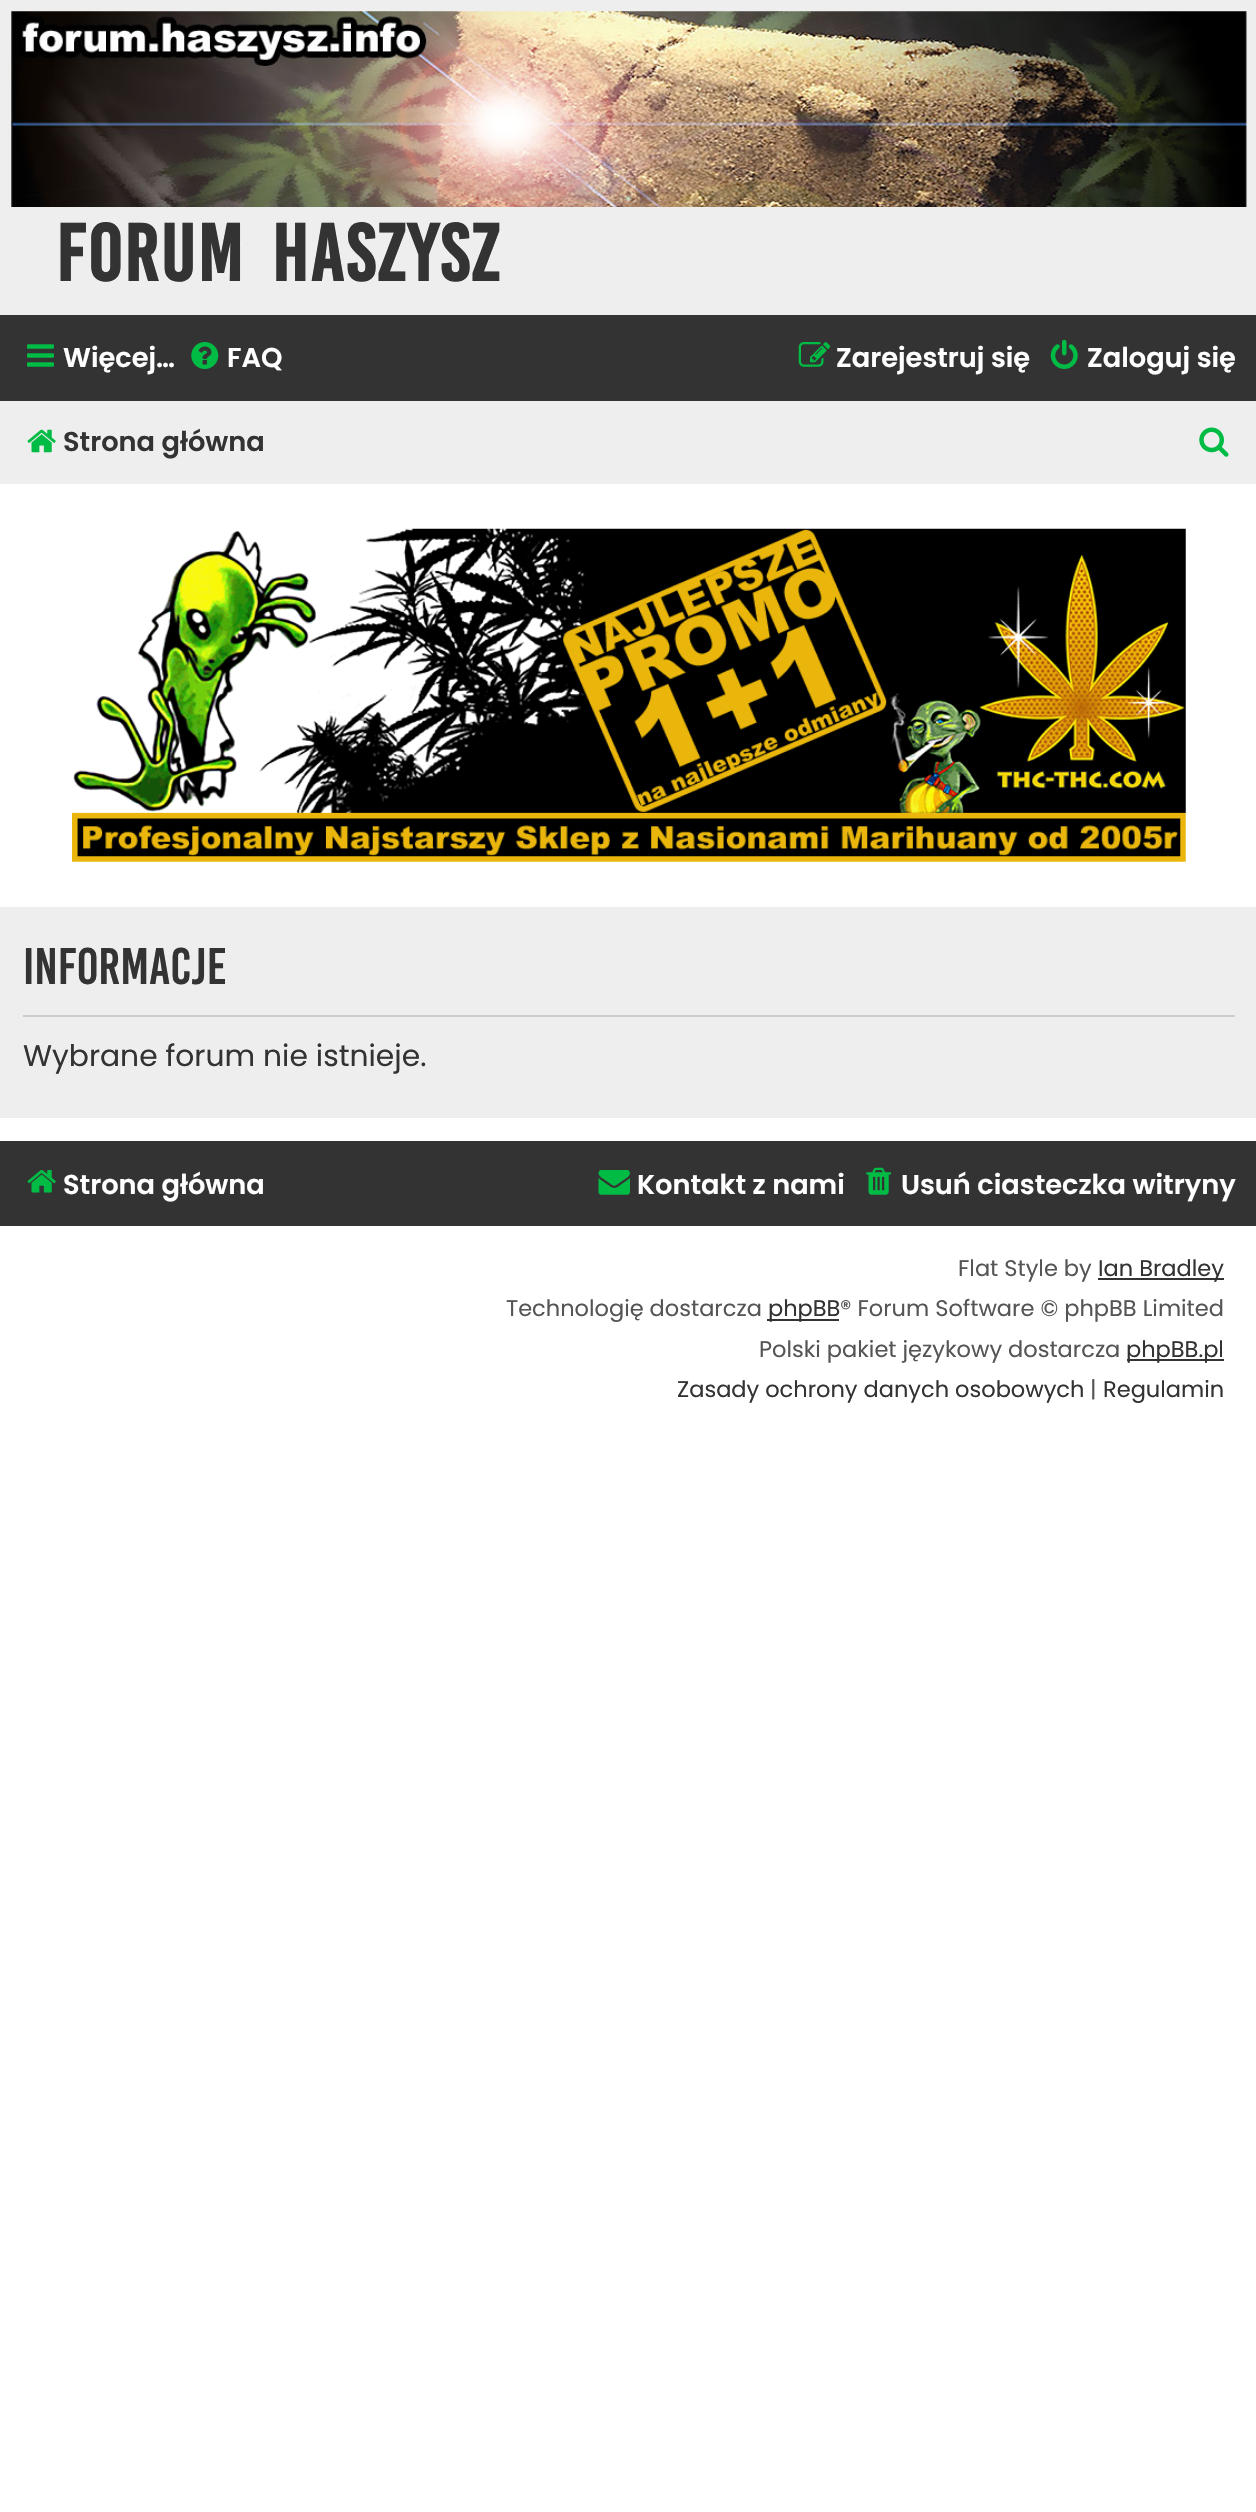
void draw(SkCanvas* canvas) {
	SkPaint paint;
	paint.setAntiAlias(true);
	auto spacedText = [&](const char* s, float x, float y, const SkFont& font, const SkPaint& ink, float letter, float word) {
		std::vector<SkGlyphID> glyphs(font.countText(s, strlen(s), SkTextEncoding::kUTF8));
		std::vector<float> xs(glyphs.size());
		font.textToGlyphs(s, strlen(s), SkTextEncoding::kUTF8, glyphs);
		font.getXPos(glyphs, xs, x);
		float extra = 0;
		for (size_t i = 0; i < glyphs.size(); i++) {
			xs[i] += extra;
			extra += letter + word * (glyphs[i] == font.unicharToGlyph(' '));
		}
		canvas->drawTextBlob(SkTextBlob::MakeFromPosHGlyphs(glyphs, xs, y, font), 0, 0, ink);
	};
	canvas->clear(0xffffffff);
	paint.setColor(0xffeeeeee);
	canvas->drawRect(SkRect::MakeXYWH(0, 0, 1256, 315), paint);
	canvas->drawImageRect(SkImages::DeferredFromEncodedData(SkData::MakeFromFileName("img1.png")), SkRect::MakeXYWH(11, 11, 1236, 196), SkSamplingOptions());
	SkFont f1(fontMgr->matchFamilyStyle("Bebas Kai", SkFontStyle::Bold()), 62);
	f1.setSubpixel(true);
	paint.setColor(0xff333333);
	spacedText("Forum Haszysz", 56, 281, f1, paint, 2.25, 9);
	canvas->drawRect(SkRect::MakeXYWH(0, 315, 1256, 86), paint);
	canvas->drawImageRect(SkImages::DeferredFromEncodedData(SkData::MakeFromFileName("img2.png")), SkRect::MakeXYWH(27, 344, 27, 23), SkSamplingOptions());
	SkFont f2(fontMgr->matchFamilyStyle("Poppins", SkFontStyle(600, SkFontStyle::kNormal_Width, SkFontStyle::kUpright_Slant)), 27.25);
	f2.setSubpixel(true);
	paint.setColor(0xffffffff);
	canvas->drawString("Więcej…", 63, 367, f2, paint);
	canvas->drawImageRect(SkImages::DeferredFromEncodedData(SkData::MakeFromFileName("img3.png")), SkRect::MakeXYWH(191, 342, 28, 27), SkSamplingOptions());
	canvas->drawString("FAQ", 227, 367, f2, paint);
	canvas->drawImageRect(SkImages::DeferredFromEncodedData(SkData::MakeFromFileName("img4.png")), SkRect::MakeXYWH(798, 342, 33, 25), SkSamplingOptions());
	canvas->drawString("Zarejestruj się", 836, 367, f2, paint);
	canvas->drawImageRect(SkImages::DeferredFromEncodedData(SkData::MakeFromFileName("img5.png")), SkRect::MakeXYWH(1050, 339, 28, 30), SkSamplingOptions());
	canvas->drawString("Zaloguj się", 1087, 367, f2, paint);
	paint.setColor(0xffeeeeee);
	canvas->drawRect(SkRect::MakeXYWH(0, 401, 1256, 83), paint);
	canvas->drawImageRect(SkImages::DeferredFromEncodedData(SkData::MakeFromFileName("img6.png")), SkRect::MakeXYWH(27, 429, 29, 24), SkSamplingOptions());
	paint.setColor(0xff333333);
	canvas->drawString("Strona główna", 63, 451, f2, paint);
	canvas->drawImageRect(SkImages::DeferredFromEncodedData(SkData::MakeFromFileName("img7.png")), SkRect::MakeXYWH(1199, 427, 30, 30), SkSamplingOptions());
	canvas->drawImageRect(SkImages::DeferredFromEncodedData(SkData::MakeFromFileName("img8.png")), SkRect::MakeXYWH(72, 528, 1114, 334), SkSamplingOptions());
	paint.setColor(0xffeeeeee);
	canvas->drawRect(SkRect::MakeXYWH(0, 907, 1256, 211), paint);
	paint.setColor(0xffcccccc);
	canvas->drawRect(SkRect::MakeXYWH(23, 1015, 1212, 2), paint);
	SkFont f3(fontMgr->matchFamilyStyle("Bebas Kai", SkFontStyle::Normal()), 39.5);
	f3.setSubpixel(true);
	paint.setColor(0xff333333);
	canvas->drawString("Informacje", 23, 984, f3, paint);
	SkFont f4(fontMgr->matchFamilyStyle("Poppins", SkFontStyle::Normal()), 29.75);
	f4.setSubpixel(true);
	canvas->drawString("Wybrane forum nie istnieje.", 23, 1066, f4, paint);
	canvas->drawRect(SkRect::MakeXYWH(0, 1141, 1256, 85), paint);
	canvas->drawImageRect(SkImages::DeferredFromEncodedData(SkData::MakeFromFileName("img9.png")), SkRect::MakeXYWH(27, 1170, 29, 23), SkSamplingOptions());
	paint.setColor(0xffffffff);
	canvas->drawString("Strona główna", 63, 1194, f2, paint);
	canvas->drawImageRect(SkImages::DeferredFromEncodedData(SkData::MakeFromFileName("img10.png")), SkRect::MakeXYWH(598, 1170, 32, 25), SkSamplingOptions());
	canvas->drawString("Kontakt z nami", 637, 1194, f2, paint);
	canvas->drawImageRect(SkImages::DeferredFromEncodedData(SkData::MakeFromFileName("img11.png")), SkRect::MakeXYWH(866, 1167, 25, 28), SkSamplingOptions());
	canvas->drawString("Usuń ciasteczka witryny", 901, 1194, f2, paint);
	SkFont f5(fontMgr->matchFamilyStyle("Poppins", SkFontStyle::Normal()), 22.5);
	f5.setSubpixel(true);
	paint.setColor(0xff555555);
	canvas->drawString("Flat Style by", 958, 1276, f5, paint);
	paint.setColor(0xff333333);
	canvas->drawRect(SkRect::MakeXYWH(1098, 1278, 126, 2), paint);
	canvas->drawString("Ian Bradley", 1098, 1276, f5, paint);
	paint.setColor(0xff555555);
	canvas->drawString("Technologię dostarcza", 506, 1316, f5, paint);
	paint.setColor(0xff333333);
	canvas->drawRect(SkRect::MakeXYWH(767, 1319, 72, 2), paint);
	canvas->drawString("phpBB", 768, 1316, f5, paint);
	paint.setColor(0xff555555);
	canvas->drawString("® Forum Software © phpBB Limited", 840, 1316, f5, paint);
	canvas->drawString("Polski pakiet językowy dostarcza", 759, 1357, f5, paint);
	paint.setColor(0xff333333);
	canvas->drawRect(SkRect::MakeXYWH(1127, 1359, 97, 2), paint);
	canvas->drawString("phpBB.pl", 1126, 1357, f5, paint);
	canvas->drawString("Zasady ochrony danych osobowych", 677, 1397, f5, paint);
	paint.setColor(0xff555555);
	canvas->drawString("|", 1090, 1397, f5, paint);
	paint.setColor(0xff333333);
	canvas->drawString("Regulamin", 1103, 1397, f5, paint);
}
